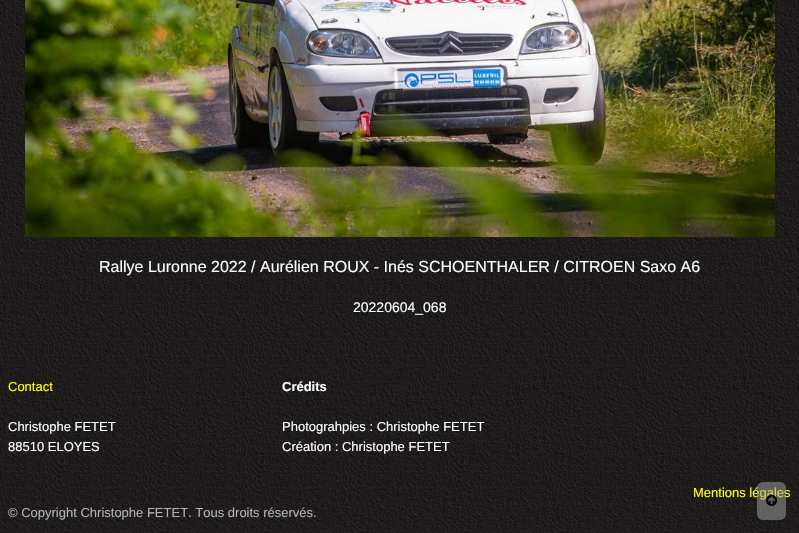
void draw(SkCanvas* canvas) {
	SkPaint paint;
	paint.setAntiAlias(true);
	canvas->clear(0xffffffff);
	canvas->drawImageRect(SkImages::DeferredFromEncodedData(SkData::MakeFromFileName("img1.png")), SkRect::MakeXYWH(0, 0, 799, 361), SkSamplingOptions());
	canvas->drawImageRect(SkImages::DeferredFromEncodedData(SkData::MakeFromFileName("img2.png")), SkRect::MakeXYWH(8, 0, 783, 361), SkSamplingOptions());
	canvas->drawImageRect(SkImages::DeferredFromEncodedData(SkData::MakeFromFileName("img3.png")), SkRect::MakeXYWH(23, 237, 753, 60), SkSamplingOptions());
	canvas->drawImageRect(SkImages::DeferredFromEncodedData(SkData::MakeFromFileName("img4.png")), SkRect::MakeXYWH(23, 0, 753, 237), SkSamplingOptions());
	canvas->drawImageRect(SkImages::DeferredFromEncodedData(SkData::MakeFromFileName("img5.png")), SkRect::MakeXYWH(25, 0, 750, 237), SkSamplingOptions());
	canvas->drawImageRect(SkImages::DeferredFromEncodedData(SkData::MakeFromFileName("img6.png")), SkRect::MakeXYWH(23, 247, 753, 40), SkSamplingOptions());
	SkFont f1(fontMgr->matchFamilyStyle("Liberation Sans", SkFontStyle::Normal()), 16);
	f1.setSubpixel(true);
	paint.setColor(0xffffffff);
	canvas->drawString("Rallye Luronne 2022 / Aurélien ROUX - Inés SCHOENTHALER / CITROEN Saxo A6", 99, 272, f1, paint);
	canvas->drawImageRect(SkImages::DeferredFromEncodedData(SkData::MakeFromFileName("img7.png")), SkRect::MakeXYWH(23, 297, 753, 20), SkSamplingOptions());
	SkFont f2(fontMgr->matchFamilyStyle("Liberation Sans", SkFontStyle::Normal()), 14);
	f2.setSubpixel(true);
	canvas->drawString("20220604_068", 353, 312, f2, paint);
	canvas->drawImageRect(SkImages::DeferredFromEncodedData(SkData::MakeFromFileName("img8.png")), SkRect::MakeXYWH(0, 361, 799, 106), SkSamplingOptions());
	canvas->drawImageRect(SkImages::DeferredFromEncodedData(SkData::MakeFromFileName("img9.png")), SkRect::MakeXYWH(0, 377, 252, 80), SkSamplingOptions());
	SkFont f3(fontMgr->matchFamilyStyle("Liberation Sans", SkFontStyle::Normal()), 13);
	f3.setSubpixel(true);
	paint.setColor(0xffffff00);
	canvas->drawString("Contact", 8, 391, f3, paint);
	paint.setColor(0xffffffff);
	canvas->drawString("Christophe FETET", 8, 431, f3, paint);
	canvas->drawString("88510 ELOYES", 8, 451, f3, paint);
	canvas->drawImageRect(SkImages::DeferredFromEncodedData(SkData::MakeFromFileName("img10.png")), SkRect::MakeXYWH(274, 377, 251, 80), SkSamplingOptions());
	SkFont f4(fontMgr->matchFamilyStyle("Liberation Sans", SkFontStyle::Bold()), 13);
	f4.setSubpixel(true);
	canvas->drawString("Crédits", 282, 391, f4, paint);
	canvas->drawString("Photograhpies : Christophe FETET", 282, 431, f3, paint);
	canvas->drawString("Création : Christophe FETET", 282, 451, f3, paint);
	canvas->drawImageRect(SkImages::DeferredFromEncodedData(SkData::MakeFromFileName("img11.png")), SkRect::MakeXYWH(0, 467, 799, 66), SkSamplingOptions());
	canvas->drawImageRect(SkImages::DeferredFromEncodedData(SkData::MakeFromFileName("img12.png")), SkRect::MakeXYWH(411, 483, 388, 30), SkSamplingOptions());
	canvas->drawImageRect(SkImages::DeferredFromEncodedData(SkData::MakeFromFileName("img13.png")), SkRect::MakeXYWH(693, 485, 98, 15), SkSamplingOptions());
	paint.setColor(0xffffff00);
	canvas->drawString("Mentions légales", 693, 497, f3, paint);
	canvas->drawImageRect(SkImages::DeferredFromEncodedData(SkData::MakeFromFileName("img14.png")), SkRect::MakeXYWH(0, 483, 388, 40), SkSamplingOptions());
	paint.setColor(0xffb3b3b3);
	canvas->drawString("© Copyright Christophe FETET. Tous droits réservés.", 8, 517, f3, paint);
	paint.setColor(0x80a5a5a5);
	canvas->drawRoundRect(SkRect::MakeXYWH(757, 482, 29, 38), 6, 6, paint);
	canvas->drawImageRect(SkImages::DeferredFromEncodedData(SkData::MakeFromFileName("img15.png")), SkRect::MakeXYWH(766, 494, 12, 12), SkSamplingOptions());
}
